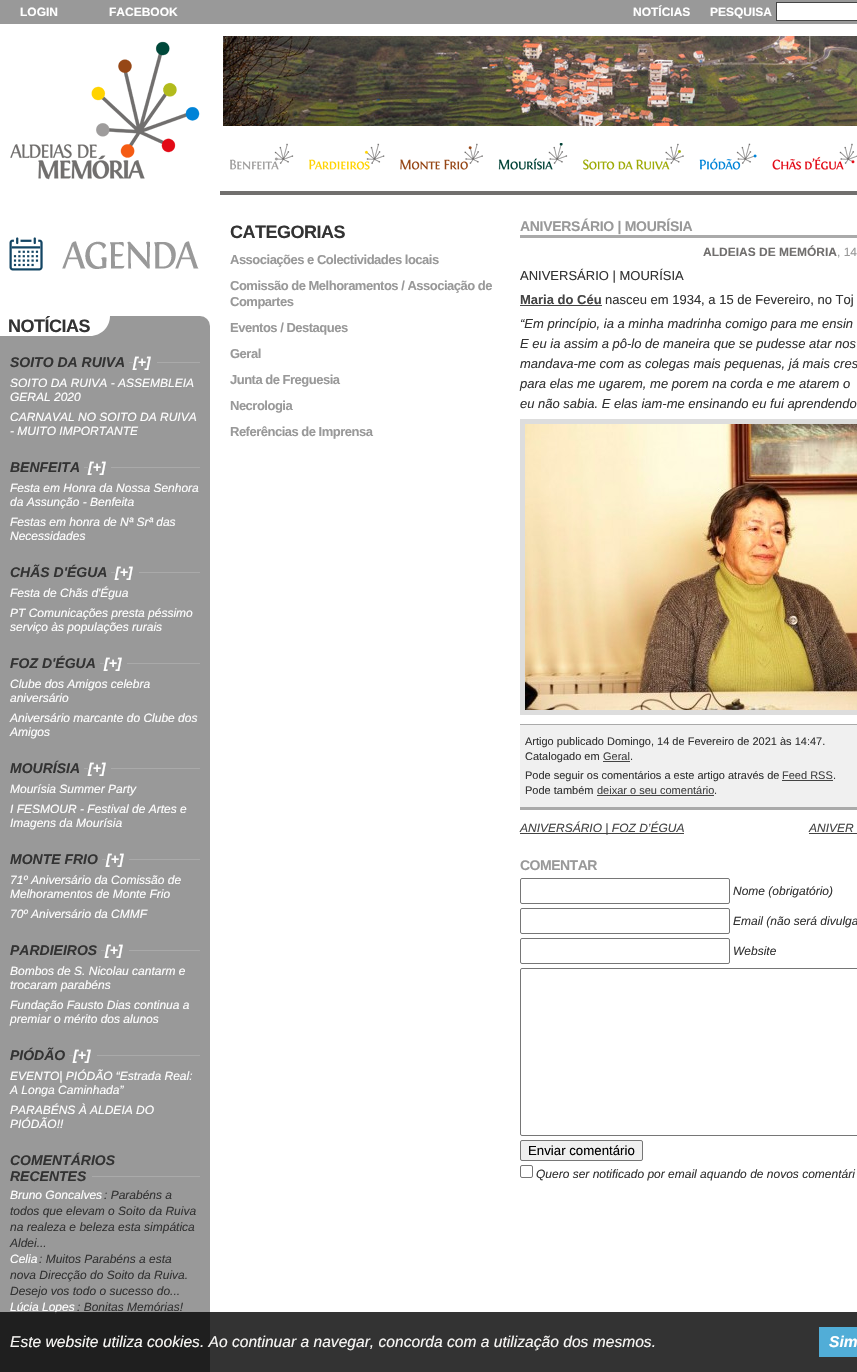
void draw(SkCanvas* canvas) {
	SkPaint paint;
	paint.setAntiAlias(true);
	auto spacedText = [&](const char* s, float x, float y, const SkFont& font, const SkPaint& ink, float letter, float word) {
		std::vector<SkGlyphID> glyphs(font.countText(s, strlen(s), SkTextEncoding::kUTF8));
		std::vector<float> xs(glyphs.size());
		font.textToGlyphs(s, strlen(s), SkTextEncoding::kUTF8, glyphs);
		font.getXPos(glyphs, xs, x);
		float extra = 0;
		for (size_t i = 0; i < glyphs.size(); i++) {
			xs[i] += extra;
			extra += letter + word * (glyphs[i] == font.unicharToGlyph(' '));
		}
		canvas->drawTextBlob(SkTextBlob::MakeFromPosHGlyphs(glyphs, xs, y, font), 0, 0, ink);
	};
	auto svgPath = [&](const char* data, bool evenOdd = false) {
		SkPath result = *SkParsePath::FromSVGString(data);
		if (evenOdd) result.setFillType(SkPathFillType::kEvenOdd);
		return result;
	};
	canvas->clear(0xffffffff);
	paint.setColor(0xff716f6e);
	canvas->drawRect(SkRect::MakeXYWH(220, 191, 637, 4), paint);
	paint.setColor(0xff999999);
	canvas->drawRect(SkRect::MakeXYWH(0, 0, 857, 24), paint);
	SkFont f1(fontMgr->matchFamilyStyle("Liberation Sans", SkFontStyle::Bold()), 12);
	f1.setSubpixel(true);
	paint.setColor(0xffffffff);
	canvas->drawString("LOGIN", 20, 16, f1, paint);
	canvas->drawString("FACEBOOK", 109, 16, f1, paint);
	canvas->drawString("NOTÍCIAS", 633, 16, f1, paint);
	canvas->drawString("PESQUISA", 710, 16, f1, paint);
	canvas->drawRect(SkRect::MakeXYWH(776.5, 2.5, 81, 18), paint);
	paint.setStroke(true);
	paint.setStrokeWidth(1);
	paint.setColor(0xff444444);
	canvas->drawRect(SkRect::MakeXYWH(776.5, 2.5, 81, 18), paint);
	canvas->drawImageRect(SkImages::DeferredFromEncodedData(SkData::MakeFromFileName("img1.png")), SkRect::MakeXYWH(223, 36, 634, 90), SkSamplingOptions());
	canvas->drawImageRect(SkImages::DeferredFromEncodedData(SkData::MakeFromFileName("img2.png")), SkRect::MakeXYWH(230, 143, 64, 27), SkSamplingOptions());
	canvas->drawImageRect(SkImages::DeferredFromEncodedData(SkData::MakeFromFileName("img3.png")), SkRect::MakeXYWH(309, 143, 76, 27), SkSamplingOptions());
	canvas->drawImageRect(SkImages::DeferredFromEncodedData(SkData::MakeFromFileName("img4.png")), SkRect::MakeXYWH(400, 143, 83, 27), SkSamplingOptions());
	canvas->drawImageRect(SkImages::DeferredFromEncodedData(SkData::MakeFromFileName("img5.png")), SkRect::MakeXYWH(498, 143, 70, 27), SkSamplingOptions());
	canvas->drawImageRect(SkImages::DeferredFromEncodedData(SkData::MakeFromFileName("img6.png")), SkRect::MakeXYWH(583, 143, 101, 27), SkSamplingOptions());
	canvas->drawImageRect(SkImages::DeferredFromEncodedData(SkData::MakeFromFileName("img7.png")), SkRect::MakeXYWH(699, 143, 58, 27), SkSamplingOptions());
	canvas->drawImageRect(SkImages::DeferredFromEncodedData(SkData::MakeFromFileName("img8.png")), SkRect::MakeXYWH(772, 143, 85, 27), SkSamplingOptions());
	canvas->drawImageRect(SkImages::DeferredFromEncodedData(SkData::MakeFromFileName("img9.png")), SkRect::MakeXYWH(9, 237, 190, 34), SkSamplingOptions());
	paint.setStroke(false);
	paint.setColor(0xff999999);
	canvas->drawRoundRect(SkRect::MakeXYWH(0, 316, 210, 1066), 10, 10, paint);
	paint.setColor(0xffffffff);
	canvas->drawPath(svgPath("M0 316H110C110 327 101 336 90 336H0Z"), paint);
	SkFont f2(fontMgr->matchFamilyStyle("Liberation Sans", SkFontStyle::Bold()), 18);
	f2.setSubpixel(true);
	paint.setColor(0xff333333);
	spacedText("NOTÍCIAS", 8, 332, f2, paint, -0.5, 0);
	paint.setColor(0xffaaaaaa);
	canvas->drawRect(SkRect::MakeXYWH(129, 362, 71, 1), paint);
	SkFont f3(fontMgr->matchFamilyStyle("Liberation Sans", SkFontStyle::BoldItalic()), 14);
	f3.setSubpixel(true);
	paint.setColor(0xff333333);
	canvas->drawString("SOITO DA RUIVA", 10, 367, f3, paint);
	paint.setColor(0xff999999);
	canvas->drawRect(SkRect::MakeXYWH(133, 362, 24, 1), paint);
	paint.setColor(0xffffffff);
	canvas->drawString("[+]", 133, 367, f3, paint);
	SkFont f4(fontMgr->matchFamilyStyle("Liberation Sans", SkFontStyle::Italic()), 12);
	f4.setSubpixel(true);
	canvas->drawString("SOITO DA RUIVA - ASSEMBLEIA", 10, 387, f4, paint);
	canvas->drawString("GERAL 2020", 10, 401, f4, paint);
	canvas->drawString("CARNAVAL NO SOITO DA RUIVA", 10, 421, f4, paint);
	canvas->drawString("- MUITO IMPORTANTE", 10, 435, f4, paint);
	paint.setColor(0xffaaaaaa);
	canvas->drawRect(SkRect::MakeXYWH(84, 467, 116, 1), paint);
	paint.setColor(0xff333333);
	canvas->drawString("BENFEITA", 10, 472, f3, paint);
	paint.setColor(0xff999999);
	canvas->drawRect(SkRect::MakeXYWH(88, 467, 23, 1), paint);
	paint.setColor(0xffffffff);
	canvas->drawString("[+]", 88, 472, f3, paint);
	canvas->drawString("Festa em Honra da Nossa Senhora", 10, 492, f4, paint);
	canvas->drawString("da Assunção - Benfeita", 10, 506, f4, paint);
	canvas->drawString("Festas em honra de Nª Srª das", 10, 526, f4, paint);
	canvas->drawString("Necessidades", 10, 540, f4, paint);
	paint.setColor(0xffaaaaaa);
	canvas->drawRect(SkRect::MakeXYWH(111, 572, 89, 1), paint);
	paint.setColor(0xff333333);
	canvas->drawString("CHÃS D'ÉGUA", 10, 577, f3, paint);
	paint.setColor(0xff999999);
	canvas->drawRect(SkRect::MakeXYWH(115, 572, 24, 1), paint);
	paint.setColor(0xffffffff);
	canvas->drawString("[+]", 115, 577, f3, paint);
	canvas->drawString("Festa de Chãs d'Égua", 10, 597, f4, paint);
	canvas->drawString("PT Comunicações presta péssimo", 10, 617, f4, paint);
	canvas->drawString("serviço às populações rurais", 10, 631, f4, paint);
	paint.setColor(0xffaaaaaa);
	canvas->drawRect(SkRect::MakeXYWH(100, 663, 100, 1), paint);
	paint.setColor(0xff333333);
	canvas->drawString("FOZ D'ÉGUA", 10, 668, f3, paint);
	paint.setColor(0xff999999);
	canvas->drawRect(SkRect::MakeXYWH(104, 663, 23, 1), paint);
	paint.setColor(0xffffffff);
	canvas->drawString("[+]", 104, 668, f3, paint);
	canvas->drawString("Clube dos Amigos celebra", 10, 688, f4, paint);
	canvas->drawString("aniversário", 10, 702, f4, paint);
	canvas->drawString("Aniversário marcante do Clube dos", 10, 722, f4, paint);
	canvas->drawString("Amigos", 10, 736, f4, paint);
	paint.setColor(0xffaaaaaa);
	canvas->drawRect(SkRect::MakeXYWH(84, 768, 116, 1), paint);
	paint.setColor(0xff333333);
	canvas->drawString("MOURÍSIA", 10, 773, f3, paint);
	paint.setColor(0xff999999);
	canvas->drawRect(SkRect::MakeXYWH(88, 768, 23, 1), paint);
	paint.setColor(0xffffffff);
	canvas->drawString("[+]", 88, 773, f3, paint);
	canvas->drawString("Mourísia Summer Party", 10, 793, f4, paint);
	canvas->drawString("I FESMOUR - Festival de Artes e", 10, 813, f4, paint);
	canvas->drawString("Imagens da Mourísia", 10, 827, f4, paint);
	paint.setColor(0xffaaaaaa);
	canvas->drawRect(SkRect::MakeXYWH(102, 859, 98, 1), paint);
	paint.setColor(0xff333333);
	canvas->drawString("MONTE FRIO", 10, 864, f3, paint);
	paint.setColor(0xff999999);
	canvas->drawRect(SkRect::MakeXYWH(106, 859, 23, 1), paint);
	paint.setColor(0xffffffff);
	canvas->drawString("[+]", 106, 864, f3, paint);
	canvas->drawString("71º Aniversário da Comissão de", 10, 884, f4, paint);
	canvas->drawString("Melhoramentos de Monte Frio", 10, 898, f4, paint);
	canvas->drawString("70º Aniversário da CMMF", 10, 918, f4, paint);
	paint.setColor(0xffaaaaaa);
	canvas->drawRect(SkRect::MakeXYWH(101, 950, 99, 1), paint);
	paint.setColor(0xff333333);
	canvas->drawString("PARDIEIROS", 10, 955, f3, paint);
	paint.setColor(0xff999999);
	canvas->drawRect(SkRect::MakeXYWH(105, 950, 24, 1), paint);
	paint.setColor(0xffffffff);
	canvas->drawString("[+]", 105, 955, f3, paint);
	canvas->drawString("Bombos de S. Nicolau cantarm e", 10, 975, f4, paint);
	canvas->drawString("trocaram parabéns", 10, 989, f4, paint);
	canvas->drawString("Fundação Fausto Dias continua a", 10, 1009, f4, paint);
	canvas->drawString("premiar o mérito dos alunos", 10, 1023, f4, paint);
	paint.setColor(0xffaaaaaa);
	canvas->drawRect(SkRect::MakeXYWH(69, 1055, 131, 1), paint);
	paint.setColor(0xff333333);
	canvas->drawString("PIÓDÃO", 10, 1060, f3, paint);
	paint.setColor(0xff999999);
	canvas->drawRect(SkRect::MakeXYWH(73, 1055, 24, 1), paint);
	paint.setColor(0xffffffff);
	canvas->drawString("[+]", 73, 1060, f3, paint);
	canvas->drawString("EVENTO| PIÓDÃO “Estrada Real:", 10, 1080, f4, paint);
	canvas->drawString("A Longa Caminhada”", 10, 1094, f4, paint);
	canvas->drawString("PARABÉNS À ALDEIA DO", 10, 1114, f4, paint);
	canvas->drawString("PIÓDÃO!!", 10, 1128, f4, paint);
	paint.setColor(0xffaaaaaa);
	canvas->drawRect(SkRect::MakeXYWH(92, 1176, 108, 1), paint);
	paint.setColor(0xff333333);
	canvas->drawString("COMENTÁRIOS", 10, 1165, f3, paint);
	canvas->drawString("RECENTES", 10, 1181, f3, paint);
	paint.setColor(0xffffffff);
	canvas->drawString("Bruno Goncalves", 10, 1199, f4, paint);
	paint.setColor(0xff333333);
	canvas->drawString(": Parabéns a", 104, 1199, f4, paint);
	canvas->drawString("todos que elevam o Soito da Ruiva", 10, 1215, f4, paint);
	canvas->drawString("na realeza e beleza esta simpática", 10, 1231, f4, paint);
	canvas->drawString("Aldei...", 10, 1247, f4, paint);
	paint.setColor(0xffffffff);
	canvas->drawString("Celia", 10, 1263, f4, paint);
	paint.setColor(0xff333333);
	canvas->drawString(": Muitos Parabéns a esta", 39, 1263, f4, paint);
	canvas->drawString("nova Direcção do Soito da Ruiva.", 10, 1279, f4, paint);
	canvas->drawString("Desejo vos todo o sucesso do...", 10, 1295, f4, paint);
	paint.setColor(0xffffffff);
	canvas->drawString("Lúcia Lopes", 10, 1311, f4, paint);
	paint.setColor(0xff333333);
	canvas->drawString(": Bonitas Memórias!", 77, 1311, f4, paint);
	spacedText("CATEGORIAS", 230, 238, f2, paint, -0.5, 0);
	SkFont f5(fontMgr->matchFamilyStyle("Liberation Sans", SkFontStyle::Bold()), 13);
	f5.setSubpixel(true);
	paint.setColor(0xff999999);
	spacedText("Associações e Colectividades locais", 230, 264, f5, paint, -0.5, 0);
	spacedText("Comissão de Melhoramentos / Associação de", 230, 290, f5, paint, -0.5, 0);
	spacedText("Compartes", 230, 306, f5, paint, -0.5, 0);
	spacedText("Eventos / Destaques", 230, 332, f5, paint, -0.5, 0);
	spacedText("Geral", 230, 358, f5, paint, -0.5, 0);
	spacedText("Junta de Freguesia", 230, 384, f5, paint, -0.5, 0);
	spacedText("Necrologia", 230, 410, f5, paint, -0.5, 0);
	spacedText("Referências de Imprensa", 230, 436, f5, paint, -0.5, 0);
	paint.setColor(0xffaaaaaa);
	canvas->drawRect(SkRect::MakeXYWH(520, 235, 337, 3), paint);
	SkFont f6(fontMgr->matchFamilyStyle("Liberation Sans", SkFontStyle::Bold()), 14);
	f6.setSubpixel(true);
	paint.setColor(0xff999999);
	spacedText("ANIVERSÁRIO | MOURÍSIA", 520, 231, f6, paint, -0.3, 0);
	paint.setColor(0xff716f6e);
	canvas->drawString("ALDEIAS DE MEMÓRIA", 703, 256, f1, paint);
	SkFont f7(fontMgr->matchFamilyStyle("Liberation Sans", SkFontStyle::Normal()), 12);
	f7.setSubpixel(true);
	paint.setColor(0xff999999);
	canvas->drawString(", 14", 837, 256, f7, paint);
	SkFont f8(fontMgr->matchFamilyStyle("Liberation Sans", SkFontStyle::Normal()), 13);
	f8.setSubpixel(true);
	paint.setColor(0xff333333);
	canvas->drawString("ANIVERSÁRIO | MOURÍSIA", 520, 280, f8, paint);
	paint.setColor(0xff444444);
	canvas->drawString("Maria do Céu", 520, 304, f5, paint);
	canvas->drawRect(SkRect::MakeXYWH(520, 305, 82, 1), paint);
	paint.setColor(0xff333333);
	canvas->drawString("nasceu em 1934, a 15 de Fevereiro, no Toj", 605, 304, f8, paint);
	SkFont f9(fontMgr->matchFamilyStyle("Liberation Sans", SkFontStyle::Italic()), 13);
	f9.setSubpixel(true);
	canvas->drawString("“Em princípio, ia a minha madrinha comigo para me ensin", 520, 328, f9, paint);
	canvas->drawString("E eu ia assim a pô-lo de maneira que se pudesse atar nos", 520, 348, f9, paint);
	canvas->drawString("mandava-me com as colegas mais pequenas, já mais cres", 520, 368, f9, paint);
	canvas->drawString("para elas me ugarem, me porem na corda e me atarem o", 520, 388, f9, paint);
	canvas->drawString("eu não sabia. E elas iam-me ensinando eu fui aprendendo", 520, 408, f9, paint);
	paint.setStroke(true);
	paint.setStrokeWidth(5);
	paint.setColor(0xffdddddd);
	canvas->drawRect(SkRect::MakeXYWH(522.5, 421.5, 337, 291), paint);
	canvas->drawImageRect(SkImages::DeferredFromEncodedData(SkData::MakeFromFileName("img10.png")), SkRect::MakeXYWH(525, 424, 332, 286), SkSamplingOptions());
	paint.setStroke(false);
	paint.setColor(0xfff0f0f0);
	canvas->drawRect(SkRect::MakeXYWH(520, 725, 337, 82), paint);
	paint.setColor(0xffaaaaaa);
	canvas->drawRect(SkRect::MakeXYWH(520, 724, 337, 1), paint);
	canvas->drawRect(SkRect::MakeXYWH(520, 807, 337, 3), paint);
	SkFont f10(fontMgr->matchFamilyStyle("Liberation Sans", SkFontStyle::Normal()), 11);
	f10.setSubpixel(true);
	paint.setColor(0xff333333);
	canvas->drawString("Artigo publicado Domingo, 14 de Fevereiro de 2021 às 14:47.", 525, 745, f10, paint);
	canvas->drawString("Catalogado em", 525, 760, f10, paint);
	paint.setColor(0xff444444);
	canvas->drawString("Geral", 603, 760, f10, paint);
	canvas->drawRect(SkRect::MakeXYWH(603, 761, 27, 1), paint);
	paint.setColor(0xff333333);
	canvas->drawString(".", 630, 760, f10, paint);
	canvas->drawString("Pode seguir os comentários a este artigo através de", 525, 779, f10, paint);
	paint.setColor(0xff444444);
	canvas->drawString("Feed RSS", 782, 779, f10, paint);
	canvas->drawRect(SkRect::MakeXYWH(782, 780, 51, 1), paint);
	paint.setColor(0xff333333);
	canvas->drawString(".", 833, 779, f10, paint);
	canvas->drawString("Pode também", 525, 794, f10, paint);
	paint.setColor(0xff444444);
	canvas->drawString("deixar o seu comentário", 597, 794, f10, paint);
	canvas->drawRect(SkRect::MakeXYWH(597, 795, 117, 1), paint);
	paint.setColor(0xff333333);
	canvas->drawString(".", 714, 794, f10, paint);
	paint.setColor(0xff444444);
	canvas->drawRect(SkRect::MakeXYWH(520, 833, 164, 1), paint);
	canvas->drawString("ANIVERSÁRIO | FOZ D’ÉGUA", 520, 832, f4, paint);
	canvas->drawString("ANIVER", 809, 832, f4, paint);
	canvas->drawRect(SkRect::MakeXYWH(809, 833, 48, 1), paint);
	paint.setColor(0xff999999);
	spacedText("COMENTAR", 520, 870, f6, paint, -0.5, 0);
	paint.setStroke(true);
	paint.setStrokeWidth(1);
	paint.setColor(0xff767676);
	canvas->drawRoundRect(SkRect::MakeXYWH(520.5, 878.5, 209, 25), 1.5, 1.5, paint);
	paint.setStroke(false);
	paint.setColor(0xff333333);
	canvas->drawString("Nome (obrigatório)", 733, 895, f4, paint);
	paint.setStroke(true);
	paint.setColor(0xff767676);
	canvas->drawRoundRect(SkRect::MakeXYWH(520.5, 908.5, 209, 25), 1.5, 1.5, paint);
	paint.setStroke(false);
	paint.setColor(0xff333333);
	canvas->drawString("Email (não será divulga", 733, 925, f4, paint);
	paint.setStroke(true);
	paint.setColor(0xff767676);
	canvas->drawRoundRect(SkRect::MakeXYWH(520.5, 938.5, 209, 25), 1.5, 1.5, paint);
	paint.setStroke(false);
	paint.setColor(0xff333333);
	canvas->drawString("Website", 733, 955, f4, paint);
	paint.setStroke(true);
	paint.setColor(0xff767676);
	canvas->drawRoundRect(SkRect::MakeXYWH(520.5, 968.5, 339, 167), 1.5, 1.5, paint);
	paint.setStroke(false);
	paint.setColor(0xffefefef);
	canvas->drawRoundRect(SkRect::MakeXYWH(520.5, 1140.5, 122, 20), 1.5, 1.5, paint);
	paint.setStroke(true);
	paint.setColor(0xff767676);
	canvas->drawRoundRect(SkRect::MakeXYWH(520.5, 1140.5, 122, 20), 1.5, 1.5, paint);
	SkFont f11(fontMgr->matchFamilyStyle("Liberation Sans", SkFontStyle::Normal()), 13.25);
	f11.setSubpixel(true);
	paint.setStroke(false);
	paint.setColor(0xff000000);
	canvas->drawString("Enviar comentário", 528, 1155, f11, paint);
	paint.setStroke(true);
	paint.setColor(0xff767676);
	canvas->drawRoundRect(SkRect::MakeXYWH(520.5, 1165.5, 12, 12), 1.5, 1.5, paint);
	paint.setStroke(false);
	paint.setColor(0xff333333);
	canvas->drawString("Quero ser notificado por email aquando de novos comentári", 536, 1178, f4, paint);
	canvas->drawImageRect(SkImages::DeferredFromEncodedData(SkData::MakeFromFileName("img11.png")), SkRect::MakeXYWH(10, 41, 190, 139), SkSamplingOptions());
	paint.setColor(0xcc000000);
	canvas->drawRect(SkRect::MakeXYWH(0, 1312, 857, 60), paint);
	SkFont f12(fontMgr->matchFamilyStyle("Liberation Sans", SkFontStyle::Italic()), 15.6);
	f12.setSubpixel(true);
	paint.setColor(0xfff8f7f5);
	canvas->drawString("Este website utiliza cookies. Ao continuar a navegar, concorda com a utilização dos mesmos.", 10, 1347, f12, paint);
	paint.setColor(0xff51add7);
	canvas->drawRect(SkRect::MakeXYWH(819, 1327, 38, 30), paint);
	SkFont f13(fontMgr->matchFamilyStyle("Liberation Sans", SkFontStyle::BoldItalic()), 15.6);
	f13.setSubpixel(true);
	paint.setColor(0xffffffff);
	canvas->drawString("Sim", 829, 1347, f13, paint);
}
